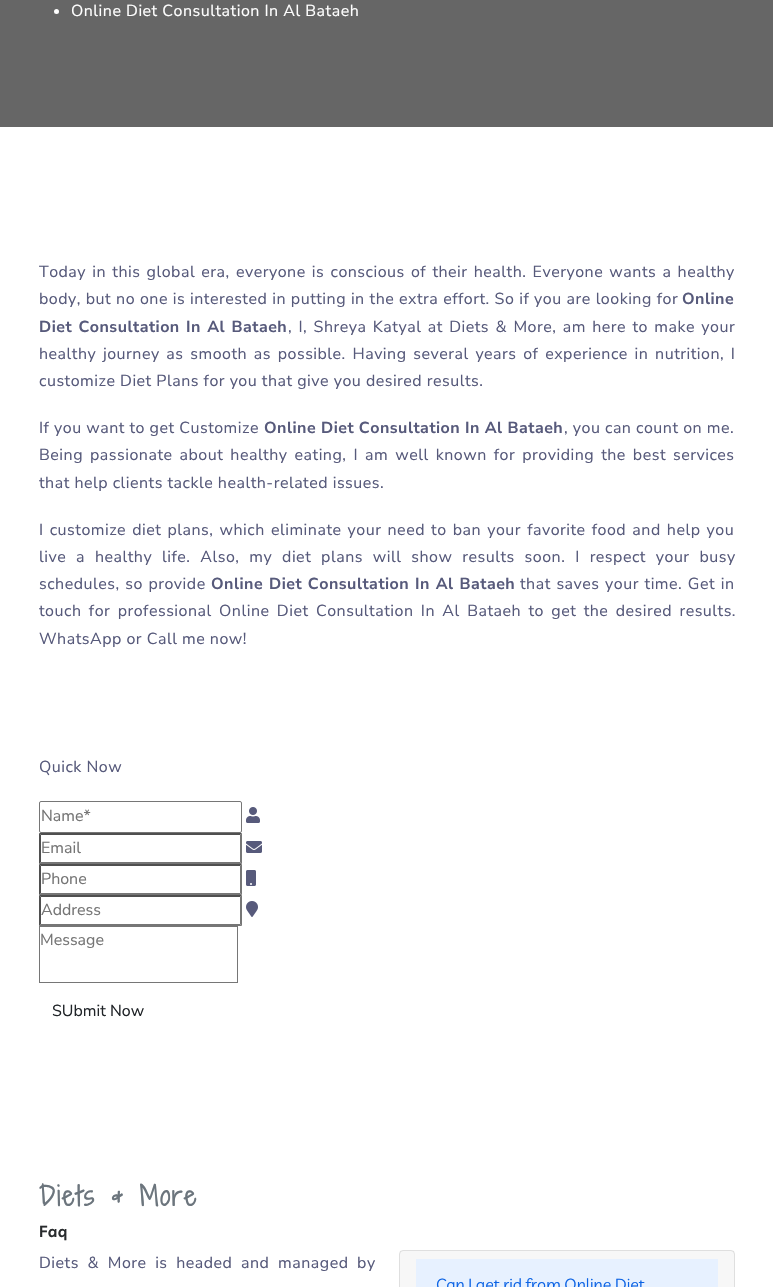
void draw(SkCanvas* canvas) {
	SkPaint paint;
	paint.setAntiAlias(true);
	auto spacedText = [&](const char* s, float x, float y, const SkFont& font, const SkPaint& ink, float letter, float word) {
		std::vector<SkGlyphID> glyphs(font.countText(s, strlen(s), SkTextEncoding::kUTF8));
		std::vector<float> xs(glyphs.size());
		font.textToGlyphs(s, strlen(s), SkTextEncoding::kUTF8, glyphs);
		font.getXPos(glyphs, xs, x);
		float extra = 0;
		for (size_t i = 0; i < glyphs.size(); i++) {
			xs[i] += extra;
			extra += letter + word * (glyphs[i] == font.unicharToGlyph(' '));
		}
		canvas->drawTextBlob(SkTextBlob::MakeFromPosHGlyphs(glyphs, xs, y, font), 0, 0, ink);
	};
	auto svgPath = [&](const char* data, bool evenOdd = false) {
		SkPath result = *SkParsePath::FromSVGString(data);
		if (evenOdd) result.setFillType(SkPathFillType::kEvenOdd);
		return result;
	};
	canvas->clear(0xffffffff);
	paint.setColor(0xff666666);
	canvas->drawRect(SkRect::MakeXYWH(0, 0, 773, 127), paint);
	paint.setColor(0xffffffff);
	canvas->drawCircle(56.5, 11.5, 2.5, paint);
	SkFont f1(fontMgr->matchFamilyStyle("Nunito Sans", SkFontStyle::Normal()), 16);
	f1.setSubpixel(true);
	spacedText("Online Diet Consultation In Al Bataeh", 71, 16, f1, paint, 0.5, 0);
	paint.setColor(0xff575a7b);
	spacedText("Today in this global era, everyone is conscious of their health. Everyone wants a healthy", 39, 277, f1, paint, 0.5, 1.6);
	spacedText("body, but no one is interested in putting in the extra effort. So if you are looking for", 39, 304, f1, paint, 0.5, 0.25);
	SkFont f2(fontMgr->matchFamilyStyle("Nunito Sans", SkFontStyle::Bold()), 16);
	f2.setSubpixel(true);
	spacedText("Online", 682, 304, f2, paint, 0.5, 0);
	spacedText("Diet Consultation In Al Bataeh", 39, 332, f2, paint, 0.5, 1.5);
	spacedText(", I, Shreya Katyal at Diets & More, am here to make your", 288, 332, f1, paint, 0.5, 1.75);
	spacedText("healthy journey as smooth as possible. Having several years of experience in nutrition, I", 39, 359, f1, paint, 0.5, 2.1);
	spacedText("customize Diet Plans for you that give you desired results.", 39, 386, f1, paint, 0.5, 0);
	spacedText("If you want to get Customize", 39, 433, f1, paint, 0.5, 0);
	spacedText("Online Diet Consultation In Al Bataeh", 264, 433, f2, paint, 0.5, 0);
	spacedText(", you can count on me.", 564, 433, f1, paint, 0.5, 0);
	spacedText("Being passionate about healthy eating, I am well known for providing the best services", 39, 460, f1, paint, 0.5, 2.4);
	spacedText("that help clients tackle health-related issues.", 39, 488, f1, paint, 0.5, 0);
	spacedText("I customize diet plans, which eliminate your need to ban your favorite food and help you", 39, 535, f1, paint, 0.5, 1.5);
	spacedText("live a healthy life. Also, my diet plans will show results soon. I respect your busy", 39, 562, f1, paint, 0.5, 5.25);
	spacedText("schedules, so provide", 39, 589, f1, paint, 0.5, 1);
	spacedText("Online Diet Consultation In Al Bataeh", 211, 589, f2, paint, 0.5, 1);
	spacedText("that saves your time. Get in", 520, 589, f1, paint, 0.5, 1);
	spacedText("touch for professional Online Diet Consultation In Al Bataeh to get the desired results.", 39, 616, f1, paint, 0.5, 2.75);
	spacedText("WhatsApp or Call me now!", 39, 644, f1, paint, 0.5, 0);
	spacedText("Quick Now", 39, 772, f1, paint, 0.5, 0);
	paint.setStroke(true);
	paint.setStrokeWidth(1);
	paint.setColor(0xff767676);
	canvas->drawRoundRect(SkRect::MakeXYWH(39.5, 801.5, 202, 31), 1.5, 1.5, paint);
	paint.setStroke(false);
	paint.setColor(0xff757575);
	canvas->drawString("Name*", 41, 821, f1, paint);
	canvas->drawImageRect(SkImages::DeferredFromEncodedData(SkData::MakeFromFileName("img1.png")), SkRect::MakeXYWH(246, 807, 14, 16), SkSamplingOptions());
	paint.setColor(0xff4f4f4f);
	canvas->drawPath(svgPath("M39 833H242L240 835H41Z"), paint);
	paint.setColor(0xff767676);
	canvas->drawPath(svgPath("M242 833V864L240 862V835Z"), paint);
	canvas->drawPath(svgPath("M242 864H39L41 862H240Z"), paint);
	paint.setColor(0xff4f4f4f);
	canvas->drawPath(svgPath("M39 864V833L41 835V862Z"), paint);
	paint.setColor(0xff757575);
	canvas->drawString("Email", 41, 853, f1, paint);
	canvas->drawImageRect(SkImages::DeferredFromEncodedData(SkData::MakeFromFileName("img2.png")), SkRect::MakeXYWH(246, 841, 16, 12), SkSamplingOptions());
	paint.setColor(0xff4f4f4f);
	canvas->drawPath(svgPath("M39 864H242L240 866H41Z"), paint);
	paint.setColor(0xff767676);
	canvas->drawPath(svgPath("M242 864V895L240 893V866Z"), paint);
	canvas->drawPath(svgPath("M242 895H39L41 893H240Z"), paint);
	paint.setColor(0xff4f4f4f);
	canvas->drawPath(svgPath("M39 895V864L41 866V893Z"), paint);
	paint.setColor(0xff757575);
	canvas->drawString("Phone", 41, 884, f1, paint);
	canvas->drawImageRect(SkImages::DeferredFromEncodedData(SkData::MakeFromFileName("img3.png")), SkRect::MakeXYWH(246, 870, 10, 16), SkSamplingOptions());
	paint.setColor(0xff4f4f4f);
	canvas->drawPath(svgPath("M39 895H242L240 897H41Z"), paint);
	paint.setColor(0xff767676);
	canvas->drawPath(svgPath("M242 895V926L240 924V897Z"), paint);
	canvas->drawPath(svgPath("M242 926H39L41 924H240Z"), paint);
	paint.setColor(0xff4f4f4f);
	canvas->drawPath(svgPath("M39 926V895L41 897V924Z"), paint);
	paint.setColor(0xff757575);
	canvas->drawString("Address", 41, 915, f1, paint);
	canvas->drawImageRect(SkImages::DeferredFromEncodedData(SkData::MakeFromFileName("img4.png")), SkRect::MakeXYWH(246, 901, 12, 16), SkSamplingOptions());
	paint.setStroke(true);
	paint.setColor(0xff767676);
	canvas->drawRect(SkRect::MakeXYWH(39.5, 926.5, 198, 56), paint);
	paint.setStroke(false);
	paint.setColor(0xff757575);
	canvas->drawString("Message", 40, 945, f1, paint);
	paint.setColor(0xff212529);
	canvas->drawString("SUbmit Now", 52, 1016, f1, paint);
	SkFont f3(fontMgr->matchFamilyStyle("Shadows Into Light Two", SkFontStyle::Bold()), 25.5);
	f3.setSubpixel(true);
	paint.setColor(0xff6c757d);
	spacedText("Diets & More", 39, 1206, f3, paint, 2, 0);
	SkFont f4(fontMgr->matchFamilyStyle("Livvic", SkFontStyle(600, SkFontStyle::kNormal_Width, SkFontStyle::kUpright_Slant)), 16);
	f4.setSubpixel(true);
	paint.setColor(0xff282b2d);
	spacedText("Faq", 39, 1237, f4, paint, 0.5, 0);
	paint.setColor(0xff575a7b);
	spacedText("Diets & More is headed and managed by", 39, 1268, f1, paint, 0.5, 4);
	paint.setStroke(true);
	paint.setColor(0xffdfdfdf);
	canvas->drawRoundRect(SkRect::MakeXYWH(399.5, 1250.5, 335, 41), 3.5, 3.5, paint);
	paint.setStroke(false);
	paint.setColor(0x08000000);
	canvas->drawRect(SkRect::MakeXYWH(400, 1251, 334, 36), paint);
	paint.setColor(0xffe7f1ff);
	canvas->drawRect(SkRect::MakeXYWH(416, 1259, 302, 28), paint);
	SkFont f5(fontMgr->matchFamilyStyle("Livvic", SkFontStyle::Normal()), 16);
	f5.setSubpixel(true);
	paint.setColor(0xff0c63e4);
	canvas->drawString("Can I get rid from Online Diet", 436, 1290, f5, paint);
}
